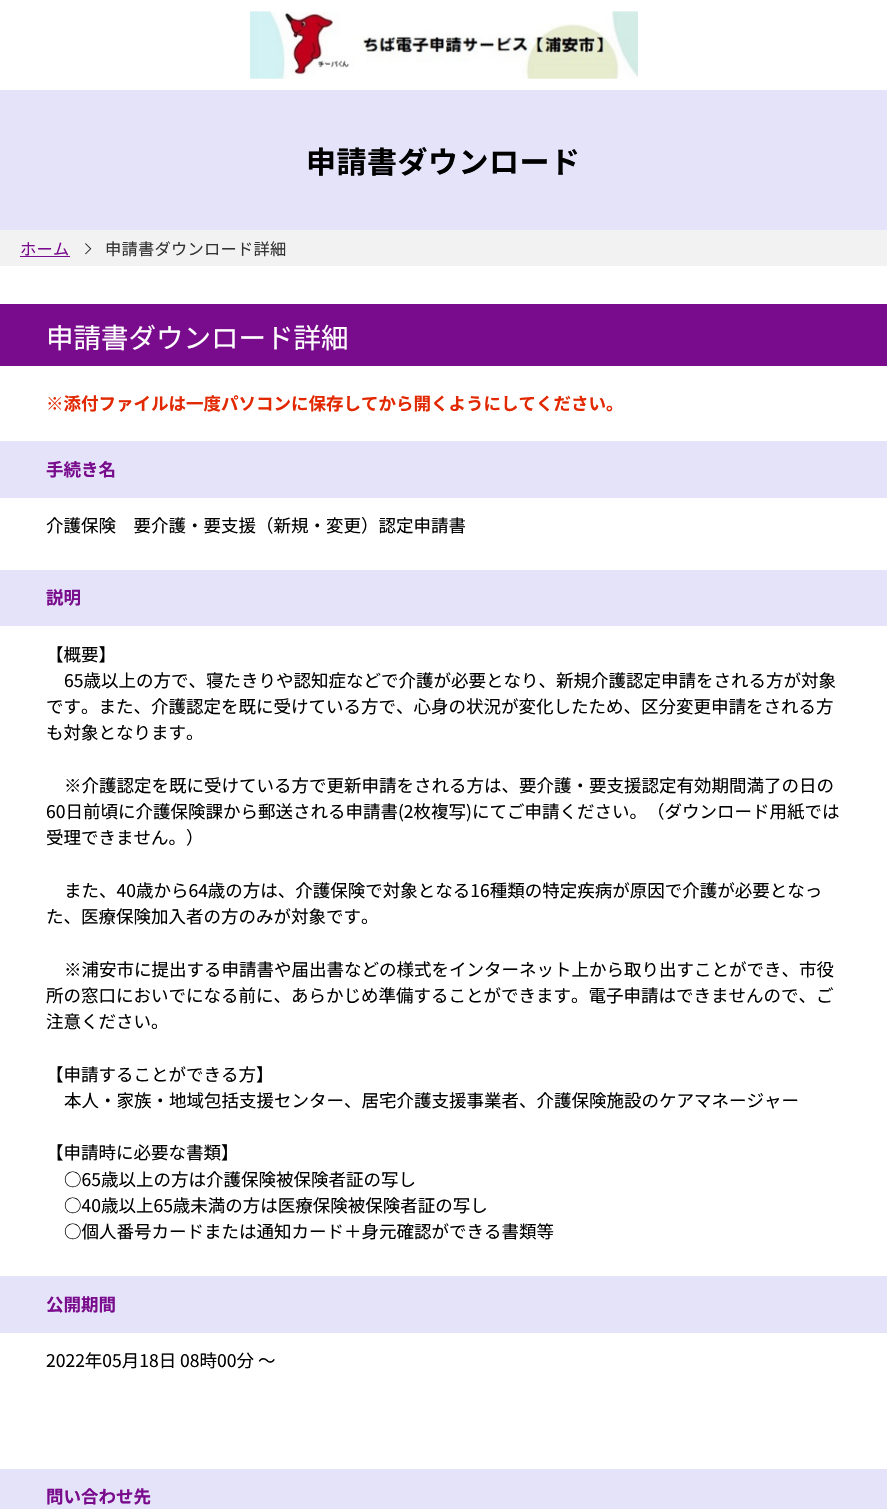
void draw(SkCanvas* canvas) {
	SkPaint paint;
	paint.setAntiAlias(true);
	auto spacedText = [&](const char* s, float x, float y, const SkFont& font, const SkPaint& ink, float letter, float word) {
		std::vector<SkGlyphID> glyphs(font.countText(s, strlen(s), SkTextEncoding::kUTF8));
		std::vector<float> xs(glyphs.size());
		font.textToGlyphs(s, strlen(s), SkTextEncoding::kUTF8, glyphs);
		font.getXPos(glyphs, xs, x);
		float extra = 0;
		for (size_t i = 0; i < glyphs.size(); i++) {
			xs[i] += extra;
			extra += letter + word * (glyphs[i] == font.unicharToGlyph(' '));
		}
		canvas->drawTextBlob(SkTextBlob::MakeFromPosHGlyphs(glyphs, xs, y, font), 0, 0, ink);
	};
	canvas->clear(0xffffffff);
	canvas->drawImageRect(SkImages::DeferredFromEncodedData(SkData::MakeFromFileName("img1.png")), SkRect::MakeXYWH(250, 11, 388, 68), SkSamplingOptions());
	paint.setColor(0xffe5e3f9);
	canvas->drawRect(SkRect::MakeXYWH(0, 90, 887, 140), paint);
	SkFont f1(fontMgr->matchFamilyStyle("Noto Sans JP", SkFontStyle::Bold()), 30);
	f1.setSubpixel(true);
	paint.setColor(0xff000000);
	spacedText("申請書ダウンロード", 306, 173, f1, paint, 0.5, 0);
	paint.setColor(0xfff2f2f2);
	canvas->drawRect(SkRect::MakeXYWH(0, 230, 887, 36), paint);
	SkFont f2(fontMgr->matchFamilyStyle("Noto Sans JP", SkFontStyle::Normal()), 16.25);
	f2.setSubpixel(true);
	paint.setColor(0xff790c8d);
	spacedText("ホーム", 20, 255, f2, paint, 0.25, 0);
	canvas->drawRect(SkRect::MakeXYWH(20, 256, 50, 1), paint);
	canvas->drawImageRect(SkImages::DeferredFromEncodedData(SkData::MakeFromFileName("img2.png")), SkRect::MakeXYWH(85, 243, 7, 12), SkSamplingOptions());
	paint.setColor(0xff333333);
	spacedText("申請書ダウンロード詳細", 105, 255, f2, paint, 0.25, 0);
	paint.setColor(0xff790c8d);
	canvas->drawRect(SkRect::MakeXYWH(0, 304, 887, 62), paint);
	SkFont f3(fontMgr->matchFamilyStyle("Noto Sans JP", SkFontStyle::Normal()), 27.5);
	f3.setSubpixel(true);
	paint.setColor(0xffffffff);
	canvas->drawString("申請書ダウンロード詳細", 46, 348, f3, paint);
	SkFont f4(fontMgr->matchFamilyStyle("Noto Sans JP", SkFontStyle::Bold()), 17.5);
	f4.setSubpixel(true);
	paint.setColor(0xffe12800);
	canvas->drawString("※添付ファイルは一度パソコンに保存してから開くようにしてください。", 46, 410, f4, paint);
	paint.setColor(0xffe5e3f9);
	canvas->drawRect(SkRect::MakeXYWH(0, 441, 887, 57), paint);
	paint.setColor(0xff790c8d);
	canvas->drawString("手続き名", 46, 476, f4, paint);
	SkFont f5(fontMgr->matchFamilyStyle("Noto Sans JP", SkFontStyle::Normal()), 17.5);
	f5.setSubpixel(true);
	paint.setColor(0xff000000);
	canvas->drawString("介護保険　要介護・要支援（新規・変更）認定申請書", 46, 532, f5, paint);
	paint.setColor(0xffe5e3f9);
	canvas->drawRect(SkRect::MakeXYWH(0, 570, 887, 56), paint);
	paint.setColor(0xff790c8d);
	canvas->drawString("説明", 46, 604, f4, paint);
	paint.setColor(0xff000000);
	canvas->drawString("【概要】", 46, 661, f5, paint);
	canvas->drawString("65歳以上の方で、寝たきりや認知症などで介護が必要となり、新規介護認定申請をされる方が対象", 64, 687, f5, paint);
	canvas->drawString("です。また、介護認定を既に受けている方で、心身の状況が変化したため、区分変更申請をされる方", 46, 713, f5, paint);
	canvas->drawString("も対象となります。", 46, 739, f5, paint);
	canvas->drawString("※介護認定を既に受けている方で更新申請をされる方は、要介護・要支援認定有効期間満了の日の", 64, 792, f5, paint);
	canvas->drawString("60日前頃に介護保険課から郵送される申請書(2枚複写)にてご申請ください。（ダウンロード用紙では", 46, 818, f5, paint);
	canvas->drawString("受理できません。）", 46, 844, f5, paint);
	canvas->drawString("また、40歳から64歳の方は、介護保険で対象となる16種類の特定疾病が原因で介護が必要となっ", 64, 897, f5, paint);
	canvas->drawString("た、医療保険加入者の方のみが対象です。", 46, 923, f5, paint);
	canvas->drawString("※浦安市に提出する申請書や届出書などの様式をインターネット上から取り出すことができ、市役", 64, 976, f5, paint);
	canvas->drawString("所の窓口においでになる前に、あらかじめ準備することができます。電子申請はできませんので、ご", 46, 1002, f5, paint);
	canvas->drawString("注意ください。", 46, 1028, f5, paint);
	canvas->drawString("【申請することができる方】", 46, 1081, f5, paint);
	canvas->drawString("本人・家族・地域包括支援センター、居宅介護支援事業者、介護保険施設のケアマネージャー", 64, 1107, f5, paint);
	canvas->drawString("【申請時に必要な書類】", 46, 1159, f5, paint);
	canvas->drawString("○65歳以上の方は介護保険被保険者証の写し", 64, 1186, f5, paint);
	canvas->drawString("○40歳以上65歳未満の方は医療保険被保険者証の写し", 64, 1212, f5, paint);
	canvas->drawString("○個人番号カードまたは通知カード＋身元確認ができる書類等", 64, 1238, f5, paint);
	paint.setColor(0xffe5e3f9);
	canvas->drawRect(SkRect::MakeXYWH(0, 1276, 887, 57), paint);
	paint.setColor(0xff790c8d);
	canvas->drawString("公開期間", 46, 1311, f4, paint);
	paint.setColor(0xff000000);
	canvas->drawString("2022年05月18日 08時00分 ～", 46, 1367, f5, paint);
	paint.setColor(0xffe5e3f9);
	canvas->drawRect(SkRect::MakeXYWH(0, 1469, 887, 40), paint);
	paint.setColor(0xff790c8d);
	canvas->drawString("問い合わせ先", 46, 1503, f4, paint);
}
